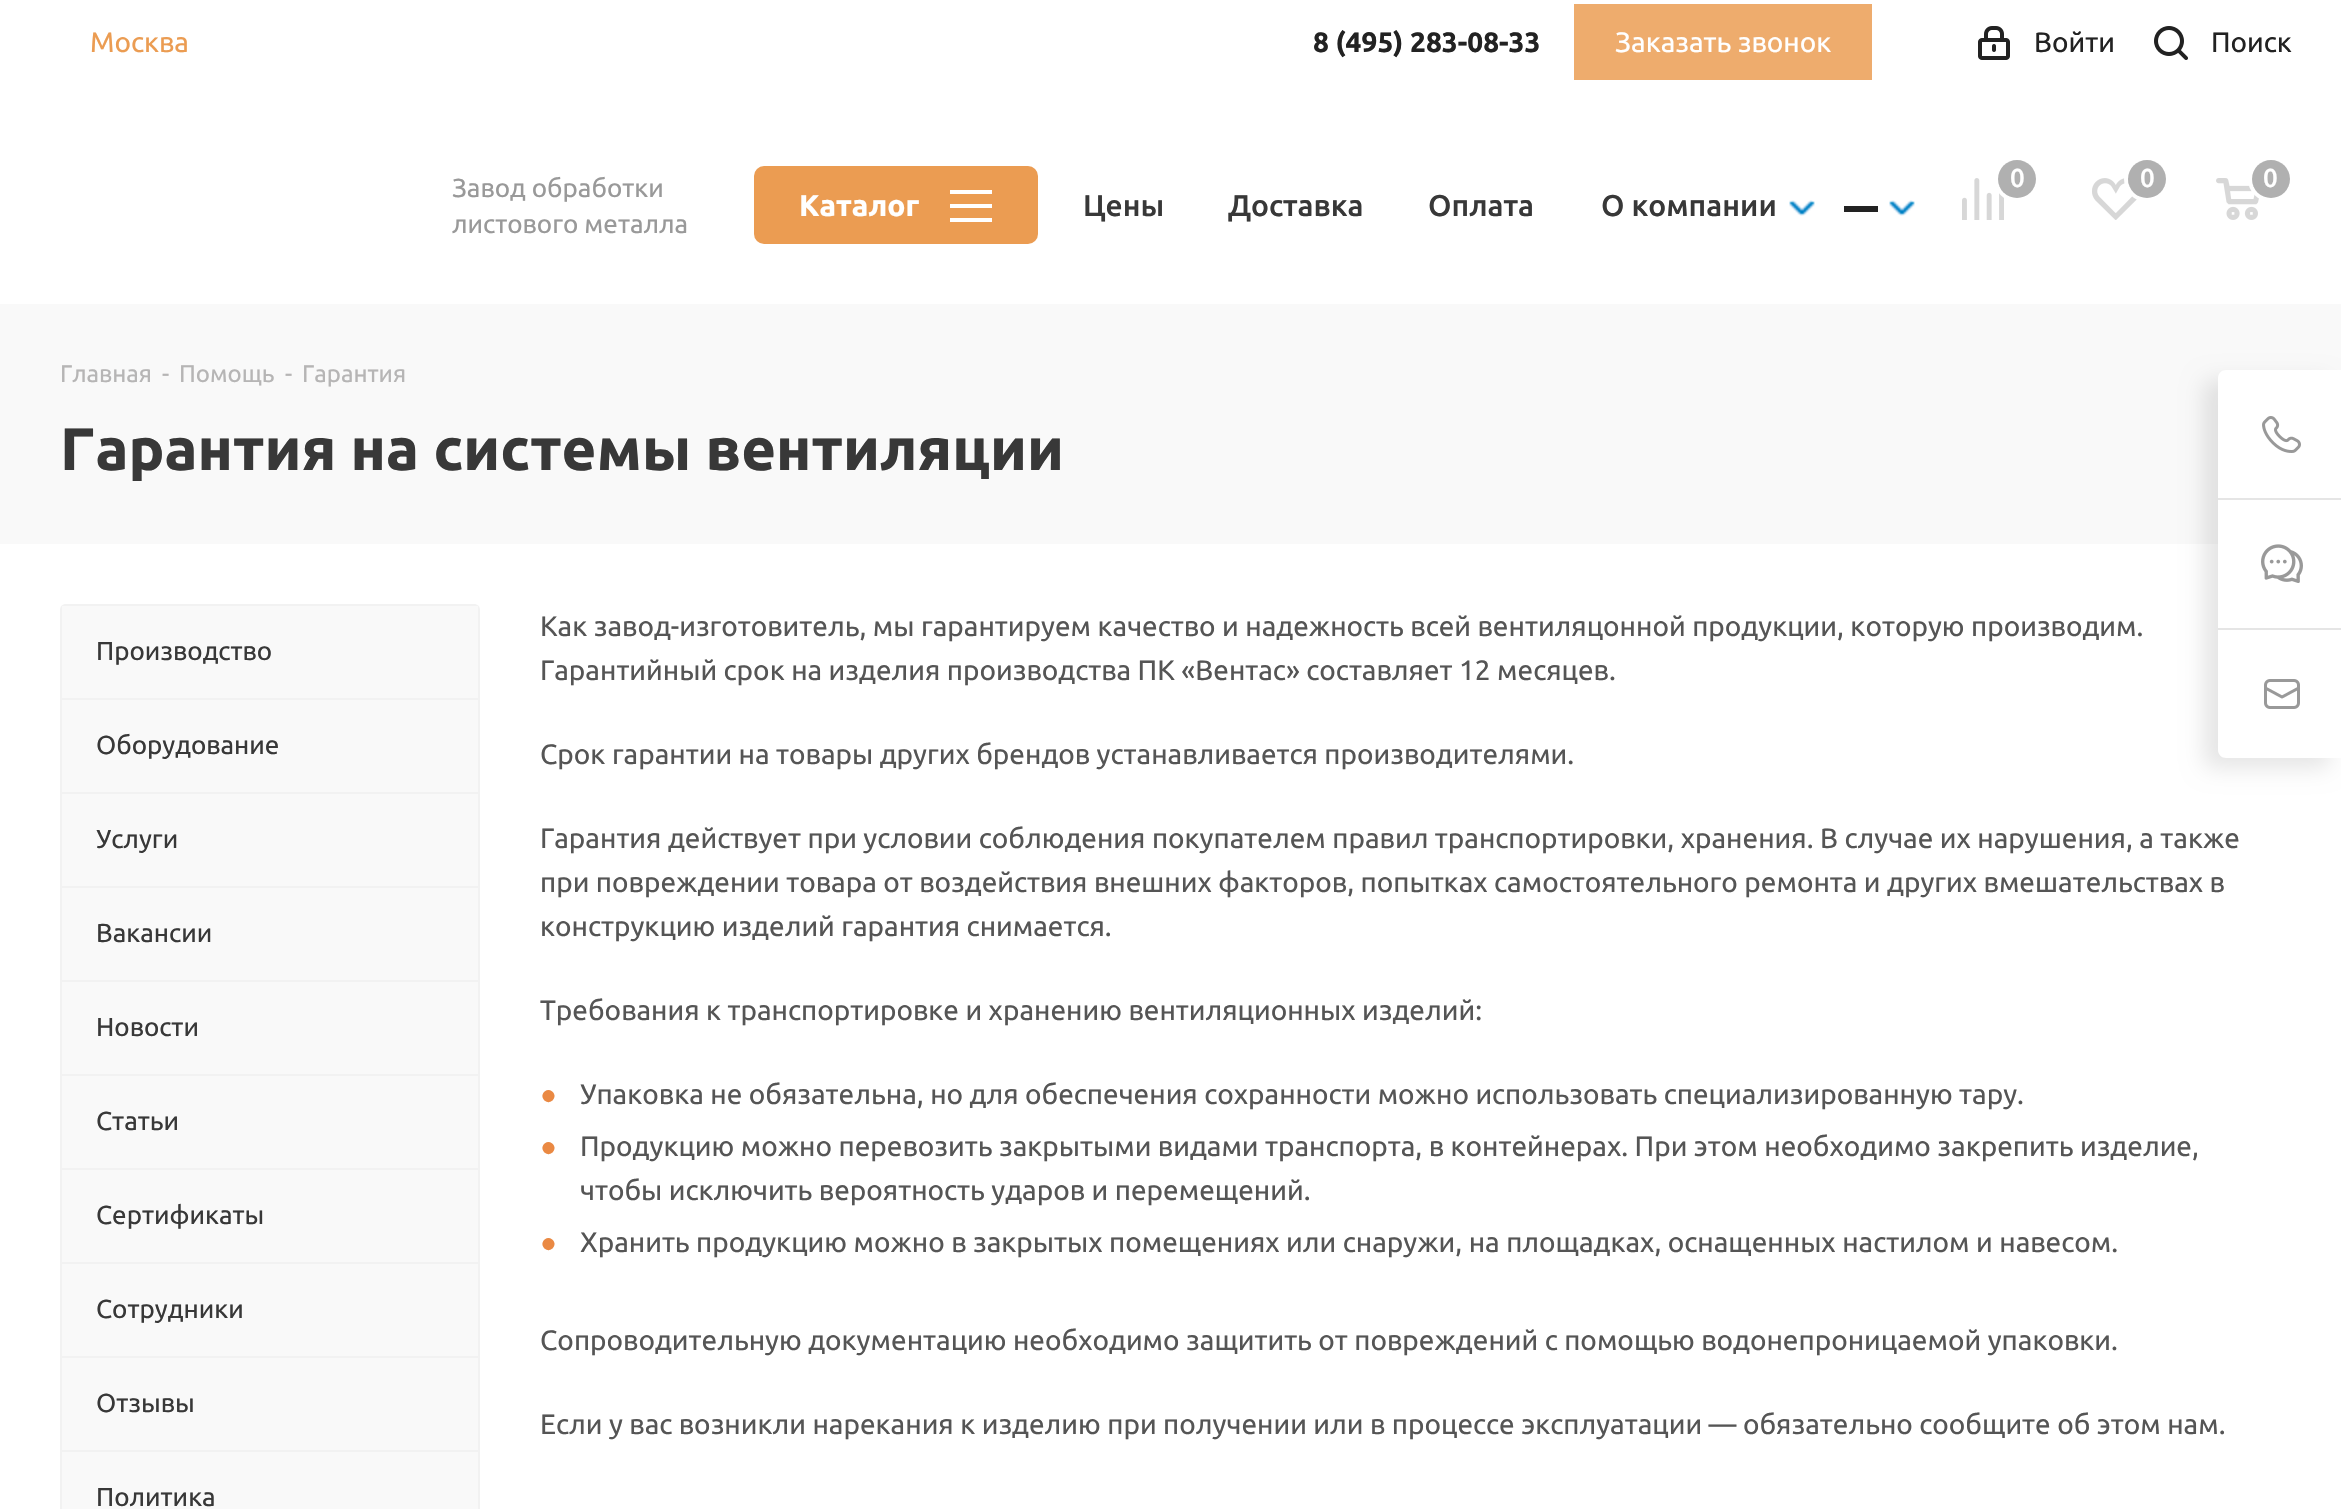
void draw(SkCanvas* canvas) {
	SkPaint paint;
	paint.setAntiAlias(true);
	auto svgPath = [&](const char* data, bool evenOdd = false) {
		SkPath result = *SkParsePath::FromSVGString(data);
		if (evenOdd) result.setFillType(SkPathFillType::kEvenOdd);
		return result;
	};
	canvas->clear(0xffffffff);
	SkFont f1(fontMgr->matchFamilyStyle("Ubuntu", SkFontStyle::Normal()), 28);
	f1.setSubpixel(true);
	paint.setColor(0xffeb9c52);
	canvas->drawString("Москва", 90, 52, f1, paint);
	SkFont f2(fontMgr->matchFamilyStyle("Ubuntu", SkFontStyle::Bold()), 28);
	f2.setSubpixel(true);
	paint.setColor(0xff222222);
	canvas->drawString("8 (495) 283-08-33", 1313, 52, f2, paint);
	paint.setColor(0xffeeac6d);
	canvas->drawRect(SkRect::MakeXYWH(1574, 4, 298, 76), paint);
	paint.setColor(0xffffffff);
	canvas->drawString("Заказать звонок", 1615, 52, f1, paint);
	canvas->drawImageRect(SkImages::DeferredFromEncodedData(SkData::MakeFromFileName("img1.png")), SkRect::MakeXYWH(1978, 26, 32, 34), SkSamplingOptions());
	paint.setColor(0xff222222);
	canvas->drawString("Войти", 2034, 52, f1, paint);
	canvas->drawImageRect(SkImages::DeferredFromEncodedData(SkData::MakeFromFileName("img2.png")), SkRect::MakeXYWH(2154, 26, 34, 34), SkSamplingOptions());
	canvas->drawString("Поиск", 2211, 52, f1, paint);
	SkFont f3(fontMgr->matchFamilyStyle("Ubuntu", SkFontStyle::Normal()), 26);
	f3.setSubpixel(true);
	paint.setColor(0xff999999);
	canvas->drawString("Завод обработки", 452, 197, f3, paint);
	canvas->drawString("листового металла", 452, 233, f3, paint);
	paint.setColor(0xffeb9c52);
	canvas->drawRoundRect(SkRect::MakeXYWH(754, 166, 284, 78), 10, 10, paint);
	SkFont f4(fontMgr->matchFamilyStyle("Ubuntu", SkFontStyle::Bold()), 30);
	f4.setSubpixel(true);
	paint.setColor(0xffffffff);
	canvas->drawString("Каталог", 799, 216, f4, paint);
	canvas->drawRect(SkRect::MakeXYWH(950, 190, 42, 4), paint);
	canvas->drawRect(SkRect::MakeXYWH(950, 204, 42, 4), paint);
	canvas->drawRect(SkRect::MakeXYWH(950, 218, 42, 4), paint);
	SkFont f5(fontMgr->matchFamilyStyle("Ubuntu", SkFontStyle(500, SkFontStyle::kNormal_Width, SkFontStyle::kUpright_Slant)), 30);
	f5.setSubpixel(true);
	paint.setColor(0xff383838);
	canvas->drawString("Цены", 1083, 216, f5, paint);
	canvas->drawString("Доставка", 1228, 216, f5, paint);
	canvas->drawString("Оплата", 1428, 216, f5, paint);
	canvas->drawString("О компании", 1601, 216, f5, paint);
	canvas->drawImageRect(SkImages::DeferredFromEncodedData(SkData::MakeFromFileName("img3.png")), SkRect::MakeXYWH(1789, 200, 26, 16), SkSamplingOptions());
	paint.setColor(0xff222222);
	canvas->drawRect(SkRect::MakeXYWH(1844, 206, 34, 6), paint);
	canvas->drawImageRect(SkImages::DeferredFromEncodedData(SkData::MakeFromFileName("img3.png")), SkRect::MakeXYWH(1889, 200, 26, 16), SkSamplingOptions());
	canvas->drawImageRect(SkImages::DeferredFromEncodedData(SkData::MakeFromFileName("img4.png")), SkRect::MakeXYWH(1962, 178, 42, 42), SkSamplingOptions());
	paint.setStroke(true);
	paint.setStrokeWidth(4);
	paint.setColor(0xffffffff);
	canvas->drawCircle(2017, 179, 21, paint);
	paint.setStroke(false);
	paint.setColor(0xffb0b0b0);
	canvas->drawCircle(2017, 179, 19, paint);
	SkFont f6(fontMgr->matchFamilyStyle("Ubuntu", SkFontStyle(500, SkFontStyle::kNormal_Width, SkFontStyle::kUpright_Slant)), 26);
	f6.setSubpixel(true);
	paint.setColor(0xffffffff);
	canvas->drawString("0", 2010, 187, f6, paint);
	canvas->drawImageRect(SkImages::DeferredFromEncodedData(SkData::MakeFromFileName("img5.png")), SkRect::MakeXYWH(2092, 178, 47, 42), SkSamplingOptions());
	paint.setStroke(true);
	canvas->drawCircle(2147, 179, 21, paint);
	paint.setStroke(false);
	paint.setColor(0xffb0b0b0);
	canvas->drawCircle(2147, 179, 19, paint);
	paint.setColor(0xffffffff);
	canvas->drawString("0", 2140, 187, f6, paint);
	canvas->drawImageRect(SkImages::DeferredFromEncodedData(SkData::MakeFromFileName("img6.png")), SkRect::MakeXYWH(2216, 178, 44, 42), SkSamplingOptions());
	paint.setStroke(true);
	canvas->drawCircle(2271, 179, 21, paint);
	paint.setStroke(false);
	paint.setColor(0xffb0b0b0);
	canvas->drawCircle(2271, 179, 19, paint);
	paint.setColor(0xffffffff);
	canvas->drawString("0", 2263, 187, f6, paint);
	paint.setColor(0xfff9f9f9);
	canvas->drawRect(SkRect::MakeXYWH(0, 304, 2341, 240), paint);
	SkFont f7(fontMgr->matchFamilyStyle("Ubuntu", SkFontStyle::Normal()), 24);
	f7.setSubpixel(true);
	paint.setColor(0xffb6b5b5);
	canvas->drawString("Главная", 60, 382, f7, paint);
	canvas->drawString("-", 162, 382, f7, paint);
	canvas->drawString("Помощь", 179, 382, f7, paint);
	canvas->drawString("-", 285, 382, f7, paint);
	canvas->drawString("Гарантия", 302, 382, f7, paint);
	SkFont f8(fontMgr->matchFamilyStyle("Ubuntu", SkFontStyle::Bold()), 59.75);
	f8.setSubpixel(true);
	paint.setColor(0xff383838);
	canvas->drawString("Гарантия на системы вентиляции", 60, 470, f8, paint);
	paint.setColor(0xfff9f9f9);
	canvas->drawRect(SkRect::MakeXYWH(62, 606, 416, 92), paint);
	canvas->save();
	canvas->clipPath(svgPath("M66 604H474C477.5 604 480 606.5 480 610V1634C480 1637.5 477.5 1640 474 1640H66C62.5 1640 60 1637.5 60 1634V610C60 606.5 62.5 604 66 604Z"), true);
	paint.setColor(0xfff2f2f2);
	canvas->drawRect(SkRect::MakeXYWH(60, 604, 420, 2), paint);
	canvas->drawRect(SkRect::MakeXYWH(478, 604, 2, 94), paint);
	canvas->drawRect(SkRect::MakeXYWH(60, 604, 2, 94), paint);
	canvas->restore();
	paint.setColor(0xff383838);
	canvas->drawString("Производство", 96, 660, f3, paint);
	paint.setColor(0xfff9f9f9);
	canvas->drawRect(SkRect::MakeXYWH(62, 700, 416, 92), paint);
	paint.setColor(0xfff2f2f2);
	canvas->drawRect(SkRect::MakeXYWH(60, 698, 420, 2), paint);
	canvas->drawRect(SkRect::MakeXYWH(478, 698, 2, 94), paint);
	canvas->drawRect(SkRect::MakeXYWH(60, 698, 2, 94), paint);
	paint.setColor(0xff383838);
	canvas->drawString("Оборудование", 96, 754, f3, paint);
	paint.setColor(0xfff9f9f9);
	canvas->drawRect(SkRect::MakeXYWH(62, 794, 416, 92), paint);
	paint.setColor(0xfff2f2f2);
	canvas->drawRect(SkRect::MakeXYWH(60, 792, 420, 2), paint);
	canvas->drawRect(SkRect::MakeXYWH(478, 792, 2, 94), paint);
	canvas->drawRect(SkRect::MakeXYWH(60, 792, 2, 94), paint);
	paint.setColor(0xff383838);
	canvas->drawString("Услуги", 96, 848, f3, paint);
	paint.setColor(0xfff9f9f9);
	canvas->drawRect(SkRect::MakeXYWH(62, 888, 416, 92), paint);
	paint.setColor(0xfff2f2f2);
	canvas->drawRect(SkRect::MakeXYWH(60, 886, 420, 2), paint);
	canvas->drawRect(SkRect::MakeXYWH(478, 886, 2, 94), paint);
	canvas->drawRect(SkRect::MakeXYWH(60, 886, 2, 94), paint);
	paint.setColor(0xff383838);
	canvas->drawString("Вакансии", 96, 942, f3, paint);
	paint.setColor(0xfff9f9f9);
	canvas->drawRect(SkRect::MakeXYWH(62, 982, 416, 92), paint);
	paint.setColor(0xfff2f2f2);
	canvas->drawRect(SkRect::MakeXYWH(60, 980, 420, 2), paint);
	canvas->drawRect(SkRect::MakeXYWH(478, 980, 2, 94), paint);
	canvas->drawRect(SkRect::MakeXYWH(60, 980, 2, 94), paint);
	paint.setColor(0xff383838);
	canvas->drawString("Новости", 96, 1036, f3, paint);
	paint.setColor(0xfff9f9f9);
	canvas->drawRect(SkRect::MakeXYWH(62, 1076, 416, 92), paint);
	paint.setColor(0xfff2f2f2);
	canvas->drawRect(SkRect::MakeXYWH(60, 1074, 420, 2), paint);
	canvas->drawRect(SkRect::MakeXYWH(478, 1074, 2, 94), paint);
	canvas->drawRect(SkRect::MakeXYWH(60, 1074, 2, 94), paint);
	paint.setColor(0xff383838);
	canvas->drawString("Статьи", 96, 1130, f3, paint);
	paint.setColor(0xfff9f9f9);
	canvas->drawRect(SkRect::MakeXYWH(62, 1170, 416, 92), paint);
	paint.setColor(0xfff2f2f2);
	canvas->drawRect(SkRect::MakeXYWH(60, 1168, 420, 2), paint);
	canvas->drawRect(SkRect::MakeXYWH(478, 1168, 2, 94), paint);
	canvas->drawRect(SkRect::MakeXYWH(60, 1168, 2, 94), paint);
	paint.setColor(0xff383838);
	canvas->drawString("Сертификаты", 96, 1224, f3, paint);
	paint.setColor(0xfff9f9f9);
	canvas->drawRect(SkRect::MakeXYWH(62, 1264, 416, 92), paint);
	paint.setColor(0xfff2f2f2);
	canvas->drawRect(SkRect::MakeXYWH(60, 1262, 420, 2), paint);
	canvas->drawRect(SkRect::MakeXYWH(478, 1262, 2, 94), paint);
	canvas->drawRect(SkRect::MakeXYWH(60, 1262, 2, 94), paint);
	paint.setColor(0xff383838);
	canvas->drawString("Сотрудники", 96, 1318, f3, paint);
	paint.setColor(0xfff9f9f9);
	canvas->drawRect(SkRect::MakeXYWH(62, 1358, 416, 92), paint);
	paint.setColor(0xfff2f2f2);
	canvas->drawRect(SkRect::MakeXYWH(60, 1356, 420, 2), paint);
	canvas->drawRect(SkRect::MakeXYWH(478, 1356, 2, 94), paint);
	canvas->drawRect(SkRect::MakeXYWH(60, 1356, 2, 94), paint);
	paint.setColor(0xff383838);
	canvas->drawString("Отзывы", 96, 1412, f3, paint);
	paint.setColor(0xfff9f9f9);
	canvas->drawRect(SkRect::MakeXYWH(62, 1452, 416, 57), paint);
	paint.setColor(0xfff2f2f2);
	canvas->drawRect(SkRect::MakeXYWH(60, 1450, 420, 2), paint);
	canvas->drawRect(SkRect::MakeXYWH(478, 1450, 2, 59), paint);
	canvas->drawRect(SkRect::MakeXYWH(60, 1450, 2, 59), paint);
	paint.setColor(0xff383838);
	canvas->drawString("Политика", 96, 1506, f3, paint);
	paint.setColor(0xff555555);
	canvas->drawString("Как завод-изготовитель, мы гарантируем качество и надежность всей вентиляцонной продукции, которую производим.", 540, 636, f1, paint);
	canvas->drawString("Гарантийный срок на изделия производства ПК «Вентас» составляет 12 месяцев.", 540, 680, f1, paint);
	canvas->drawString("Срок гарантии на товары других брендов устанавливается производителями.", 540, 764, f1, paint);
	canvas->drawString("Гарантия действует при условии соблюдения покупателем правил транспортировки, хранения. В случае их нарушения, а также", 540, 848, f1, paint);
	canvas->drawString("при повреждении товара от воздействия внешних факторов, попытках самостоятельного ремонта и других вмешательствах в", 540, 892, f1, paint);
	canvas->drawString("конструкцию изделий гарантия снимается.", 540, 936, f1, paint);
	canvas->drawString("Требования к транспортировке и хранению вентиляционных изделий:", 540, 1020, f1, paint);
	SkFont f9(fontMgr->matchFamilyStyle("Liberation Sans", SkFontStyle::Normal()), 28);
	f9.setSubpixel(true);
	paint.setColor(0xffea8943);
	canvas->drawString("●", 540, 1104, f9, paint);
	paint.setColor(0xff555555);
	canvas->drawString("Упаковка не обязательна, но для обеспечения сохранности можно использовать специализированную тару.", 580, 1104, f1, paint);
	paint.setColor(0xffea8943);
	canvas->drawString("●", 540, 1156, f9, paint);
	paint.setColor(0xff555555);
	canvas->drawString("Продукцию можно перевозить закрытыми видами транспорта, в контейнерах. При этом необходимо закрепить изделие,", 580, 1156, f1, paint);
	canvas->drawString("чтобы исключить вероятность ударов и перемещений.", 580, 1200, f1, paint);
	paint.setColor(0xffea8943);
	canvas->drawString("●", 540, 1252, f9, paint);
	paint.setColor(0xff555555);
	canvas->drawString("Хранить продукцию можно в закрытых помещениях или снаружи, на площадках, оснащенных настилом и навесом.", 580, 1252, f1, paint);
	canvas->drawString("Сопроводительную документацию необходимо защитить от повреждений с помощью водонепроницаемой упаковки.", 540, 1350, f1, paint);
	canvas->drawString("Если у вас возникли нарекания к изделию при получении или в процессе эксплуатации — обязательно сообщите об этом нам.", 540, 1434, f1, paint);
	paint.setColor(0x1a000000);
	paint.setMaskFilter(SkMaskFilter::MakeBlur(kNormal_SkBlurStyle, 11));
	canvas->drawRoundRect(SkRect::MakeXYWH(2204, 380, 126, 388), 8, 8, paint);
	paint.setMaskFilter(nullptr);
	paint.setColor(0xffffffff);
	canvas->drawPath(svgPath("M2226 370H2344V758H2226C2221.5 758 2218 754.5 2218 750V378C2218 373.5 2221.5 370 2226 370Z"), paint);
	canvas->drawImageRect(SkImages::DeferredFromEncodedData(SkData::MakeFromFileName("img7.png")), SkRect::MakeXYWH(2262, 416, 39, 37), SkSamplingOptions());
	paint.setColor(0xffe5e5e5);
	canvas->drawRect(SkRect::MakeXYWH(2218, 498, 123, 2), paint);
	canvas->drawRect(SkRect::MakeXYWH(2218, 628, 123, 2), paint);
	canvas->drawImageRect(SkImages::DeferredFromEncodedData(SkData::MakeFromFileName("img8.png")), SkRect::MakeXYWH(2261, 544, 42, 39), SkSamplingOptions());
	canvas->drawImageRect(SkImages::DeferredFromEncodedData(SkData::MakeFromFileName("img9.png")), SkRect::MakeXYWH(2264, 679, 36, 30), SkSamplingOptions());
}
